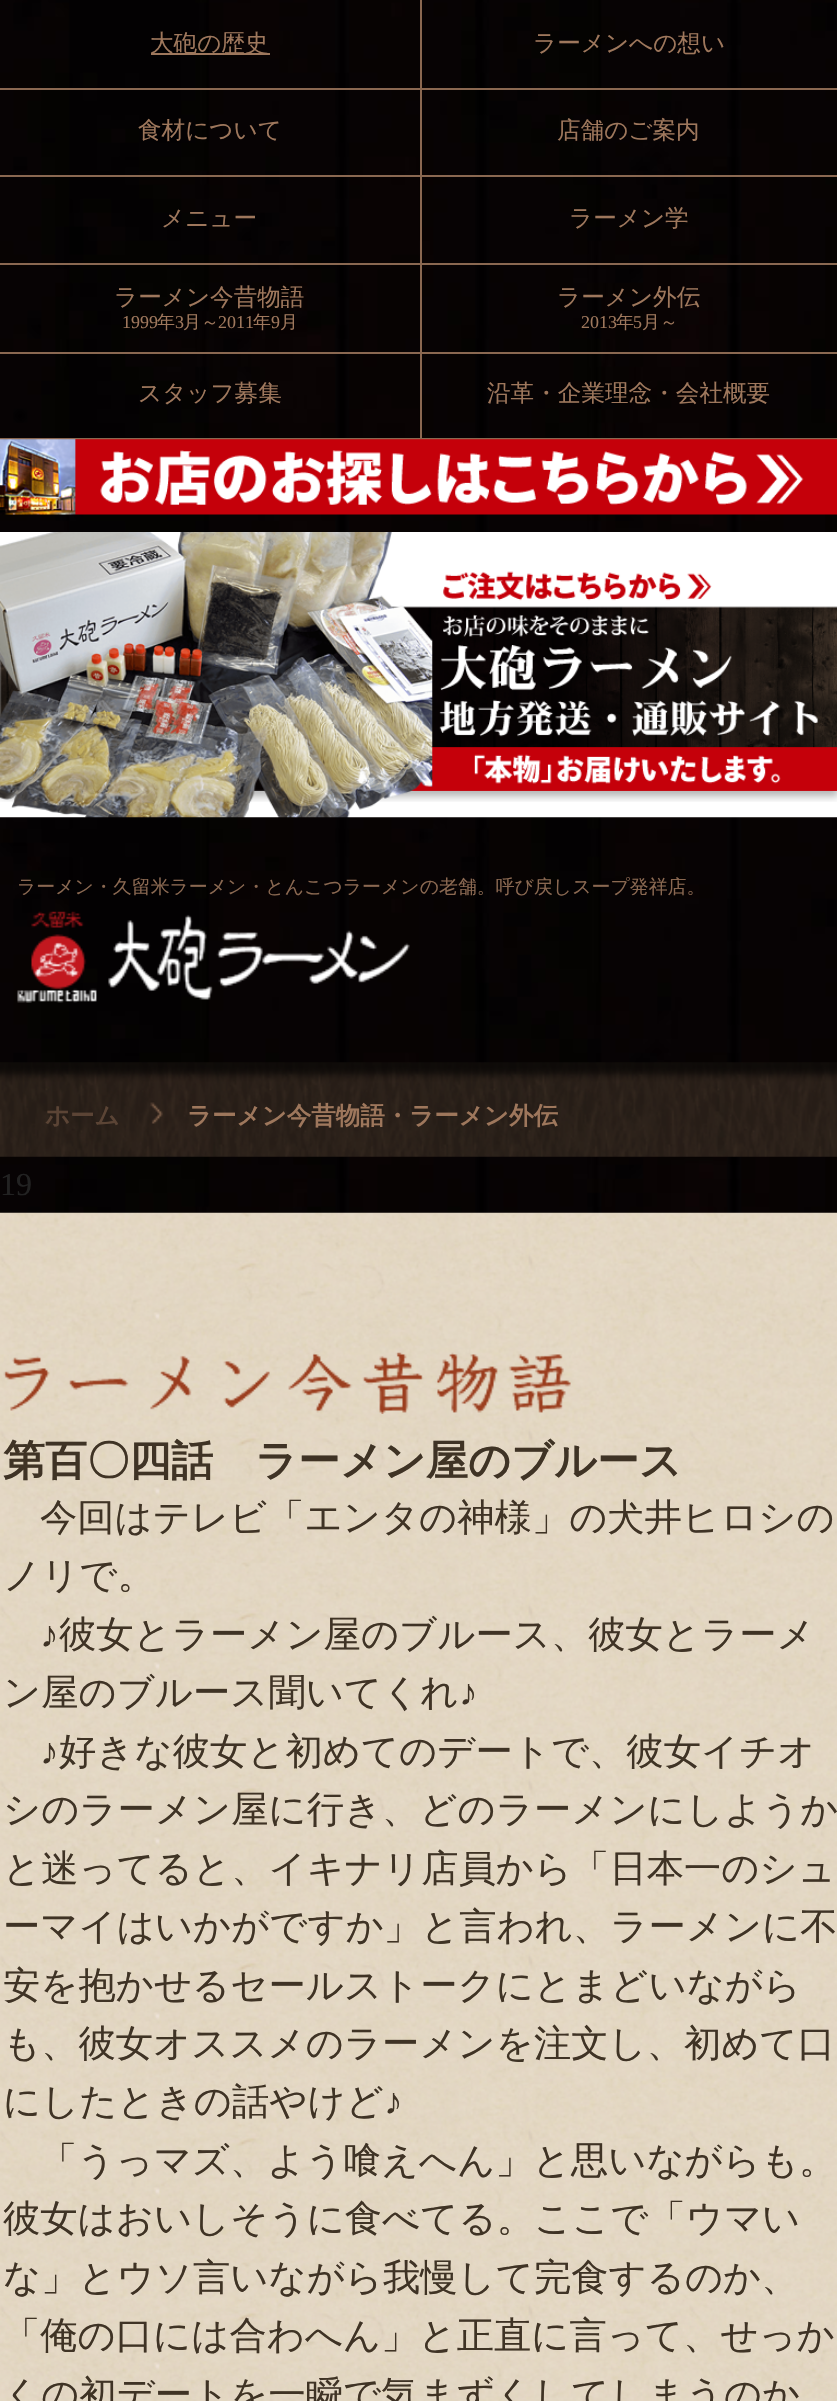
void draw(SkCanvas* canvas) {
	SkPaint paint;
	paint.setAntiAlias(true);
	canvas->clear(0xffffffff);
	canvas->drawImageRect(SkImages::DeferredFromEncodedData(SkData::MakeFromFileName("img1.png")), SkRect::MakeXYWH(0, 0, 837, 1213), SkSamplingOptions());
	paint.setColor(0xff8a6851);
	canvas->drawRect(SkRect::MakeXYWH(0, 438, 837, 2), paint);
	canvas->drawRect(SkRect::MakeXYWH(420, 0, 2, 89), paint);
	canvas->drawRect(SkRect::MakeXYWH(0, 88, 837, 2), paint);
	paint.setColor(0xff9e775c);
	canvas->drawRect(SkRect::MakeXYWH(151, 53, 119, 2), paint);
	SkFont f1(fontMgr->matchFamilyStyle("WenQuanYi Zen Hei", SkFontStyle(500, SkFontStyle::kNormal_Width, SkFontStyle::kUpright_Slant)), 23.6);
	f1.setSubpixel(true);
	canvas->drawString("大砲の歴史", 150, 51, f1, paint);
	canvas->drawString("ラーメンへの想い", 533, 51, f1, paint);
	paint.setColor(0xff8a6851);
	canvas->drawRect(SkRect::MakeXYWH(420, 88, 2, 89), paint);
	canvas->drawRect(SkRect::MakeXYWH(0, 175, 837, 2), paint);
	paint.setColor(0xff9e775c);
	canvas->drawString("食材について", 138, 138, f1, paint);
	canvas->drawString("店舗のご案内", 557, 138, f1, paint);
	paint.setColor(0xff8a6851);
	canvas->drawRect(SkRect::MakeXYWH(420, 175, 2, 89), paint);
	canvas->drawRect(SkRect::MakeXYWH(0, 263, 837, 2), paint);
	paint.setColor(0xff9e775c);
	canvas->drawString("メニュー", 161, 226, f1, paint);
	canvas->drawString("ラーメン学", 569, 226, f1, paint);
	paint.setColor(0xff8a6851);
	canvas->drawRect(SkRect::MakeXYWH(420, 263, 2, 91), paint);
	canvas->drawRect(SkRect::MakeXYWH(0, 352, 837, 2), paint);
	paint.setColor(0xff9e775c);
	canvas->drawString("ラーメン今昔物語", 114, 305, f1, paint);
	SkFont f2(fontMgr->matchFamilyStyle("Liberation Serif", SkFontStyle::Normal()), 18);
	f2.setSubpixel(true);
	canvas->drawString("1999", 122, 328, f2, paint);
	SkFont f3(fontMgr->matchFamilyStyle("WenQuanYi Zen Hei", SkFontStyle(500, SkFontStyle::kNormal_Width, SkFontStyle::kUpright_Slant)), 18);
	f3.setSubpixel(true);
	canvas->drawString("年", 157, 328, f3, paint);
	canvas->drawString("3", 175, 328, f2, paint);
	canvas->drawString("月～", 183, 328, f3, paint);
	canvas->drawString("2011", 218, 328, f2, paint);
	canvas->drawString("年", 253, 328, f3, paint);
	canvas->drawString("9", 271, 328, f2, paint);
	canvas->drawString("月", 280, 328, f3, paint);
	canvas->drawString("ラーメン外伝", 557, 305, f1, paint);
	canvas->drawString("2013", 581, 328, f2, paint);
	canvas->drawString("年", 616, 328, f3, paint);
	canvas->drawString("5", 633, 328, f2, paint);
	canvas->drawString("月～", 642, 328, f3, paint);
	paint.setColor(0xff8a6851);
	canvas->drawRect(SkRect::MakeXYWH(420, 350, 2, 88), paint);
	paint.setColor(0xff9e775c);
	canvas->drawString("スタッフ募集", 138, 401, f1, paint);
	canvas->drawString("沿革・企業理念・会社概要", 487, 401, f1, paint);
	canvas->drawImageRect(SkImages::DeferredFromEncodedData(SkData::MakeFromFileName("img2.png")), SkRect::MakeXYWH(0, 439, 837, 76), SkSamplingOptions());
	canvas->drawImageRect(SkImages::DeferredFromEncodedData(SkData::MakeFromFileName("img3.png")), SkRect::MakeXYWH(0, 532, 837, 286), SkSamplingOptions());
	SkFont f4(fontMgr->matchFamilyStyle("WenQuanYi Zen Hei", SkFontStyle(500, SkFontStyle::kNormal_Width, SkFontStyle::kUpright_Slant)), 18.9);
	f4.setSubpixel(true);
	paint.setColor(0xff8a6851);
	canvas->drawString("ラーメン・久留米ラーメン・とんこつラーメンの老舗。呼び戻しスープ発祥店。", 17, 893, f4, paint);
	canvas->drawImageRect(SkImages::DeferredFromEncodedData(SkData::MakeFromFileName("img4.png")), SkRect::MakeXYWH(17, 911, 393, 92), SkSamplingOptions());
	canvas->drawImageRect(SkImages::DeferredFromEncodedData(SkData::MakeFromFileName("img5.png")), SkRect::MakeXYWH(0, 1062, 837, 95), SkSamplingOptions());
	SkFont f5(fontMgr->matchFamilyStyle("WenQuanYi Zen Hei", SkFontStyle::Bold()), 24.5);
	f5.setSubpixel(true);
	paint.setColor(0xff5b4435);
	canvas->drawString("ホーム", 45, 1124, f5, paint);
	canvas->drawImageRect(SkImages::DeferredFromEncodedData(SkData::MakeFromFileName("img6.png")), SkRect::MakeXYWH(150, 1102, 13, 22), SkSamplingOptions());
	paint.setColor(0xff9e775c);
	canvas->drawString("ラーメン今昔物語・ラーメン外伝", 187, 1124, f5, paint);
	SkFont f6(fontMgr->matchFamilyStyle("Liberation Serif", SkFontStyle::Normal()), 32);
	f6.setSubpixel(true);
	paint.setColor(0xff222222);
	canvas->drawString("19", 0, 1195, f6, paint);
	canvas->drawImageRect(SkImages::DeferredFromEncodedData(SkData::MakeFromFileName("img7.png")), SkRect::MakeXYWH(0, 1212, 837, 1189), SkSamplingOptions());
	canvas->drawImageRect(SkImages::DeferredFromEncodedData(SkData::MakeFromFileName("img8.png")), SkRect::MakeXYWH(3, 1352, 568, 62), SkSamplingOptions());
	SkFont f7(fontMgr->matchFamilyStyle("WenQuanYi Zen Hei", SkFontStyle::Bold()), 42);
	f7.setSubpixel(true);
	paint.setColor(0xff3f3325);
	canvas->drawString("第百〇四話　ラーメン屋のブルース", 3, 1475, f7, paint);
	SkFont f8(fontMgr->matchFamilyStyle("WenQuanYi Zen Hei", SkFontStyle(500, SkFontStyle::kNormal_Width, SkFontStyle::kUpright_Slant)), 37.3);
	f8.setSubpixel(true);
	canvas->drawString("今回はテレビ「エンタの神様」の犬井ヒロシの", 40, 1530, f8, paint);
	canvas->drawString("ノリで。", 3, 1588, f8, paint);
	SkFont f9(fontMgr->matchFamilyStyle("Liberation Serif", SkFontStyle::Normal()), 37.3);
	f9.setSubpixel(true);
	canvas->drawString("♪", 40, 1647, f9, paint);
	canvas->drawString("彼女とラーメン屋のブルース、彼女とラーメ", 59, 1647, f8, paint);
	canvas->drawString("ン屋のブルース聞いてくれ", 3, 1705, f8, paint);
	canvas->drawString("♪", 459, 1705, f9, paint);
	canvas->drawString("♪", 40, 1764, f9, paint);
	canvas->drawString("好きな彼女と初めてのデートで、彼女イチオ", 59, 1764, f8, paint);
	canvas->drawString("シのラーメン屋に行き、どのラーメンにしようか", 3, 1822, f8, paint);
	canvas->drawString("と迷ってると、イキナリ店員から「日本一のシュ", 3, 1881, f8, paint);
	canvas->drawString("ーマイはいかがですか」と言われ、ラーメンに不", 3, 1939, f8, paint);
	canvas->drawString("安を抱かせるセールストークにとまどいながら", 3, 1998, f8, paint);
	canvas->drawString("も、彼女オススメのラーメンを注文し、初めて口", 3, 2056, f8, paint);
	canvas->drawString("にしたときの話やけど", 3, 2114, f8, paint);
	canvas->drawString("♪", 384, 2114, f9, paint);
	canvas->drawString("「うっマズ、よう喰えへん」と思いながらも。", 40, 2173, f8, paint);
	canvas->drawString("彼女はおいしそうに食べてる。ここで「ウマい", 3, 2231, f8, paint);
	canvas->drawString("な」とウソ言いながら我慢して完食するのか、", 3, 2290, f8, paint);
	canvas->drawString("「俺の口には合わへん」と正直に言って、せっか", 3, 2348, f8, paint);
	canvas->drawString("くの初デートを一瞬で気まずくしてしまうのか", 3, 2407, f8, paint);
}
